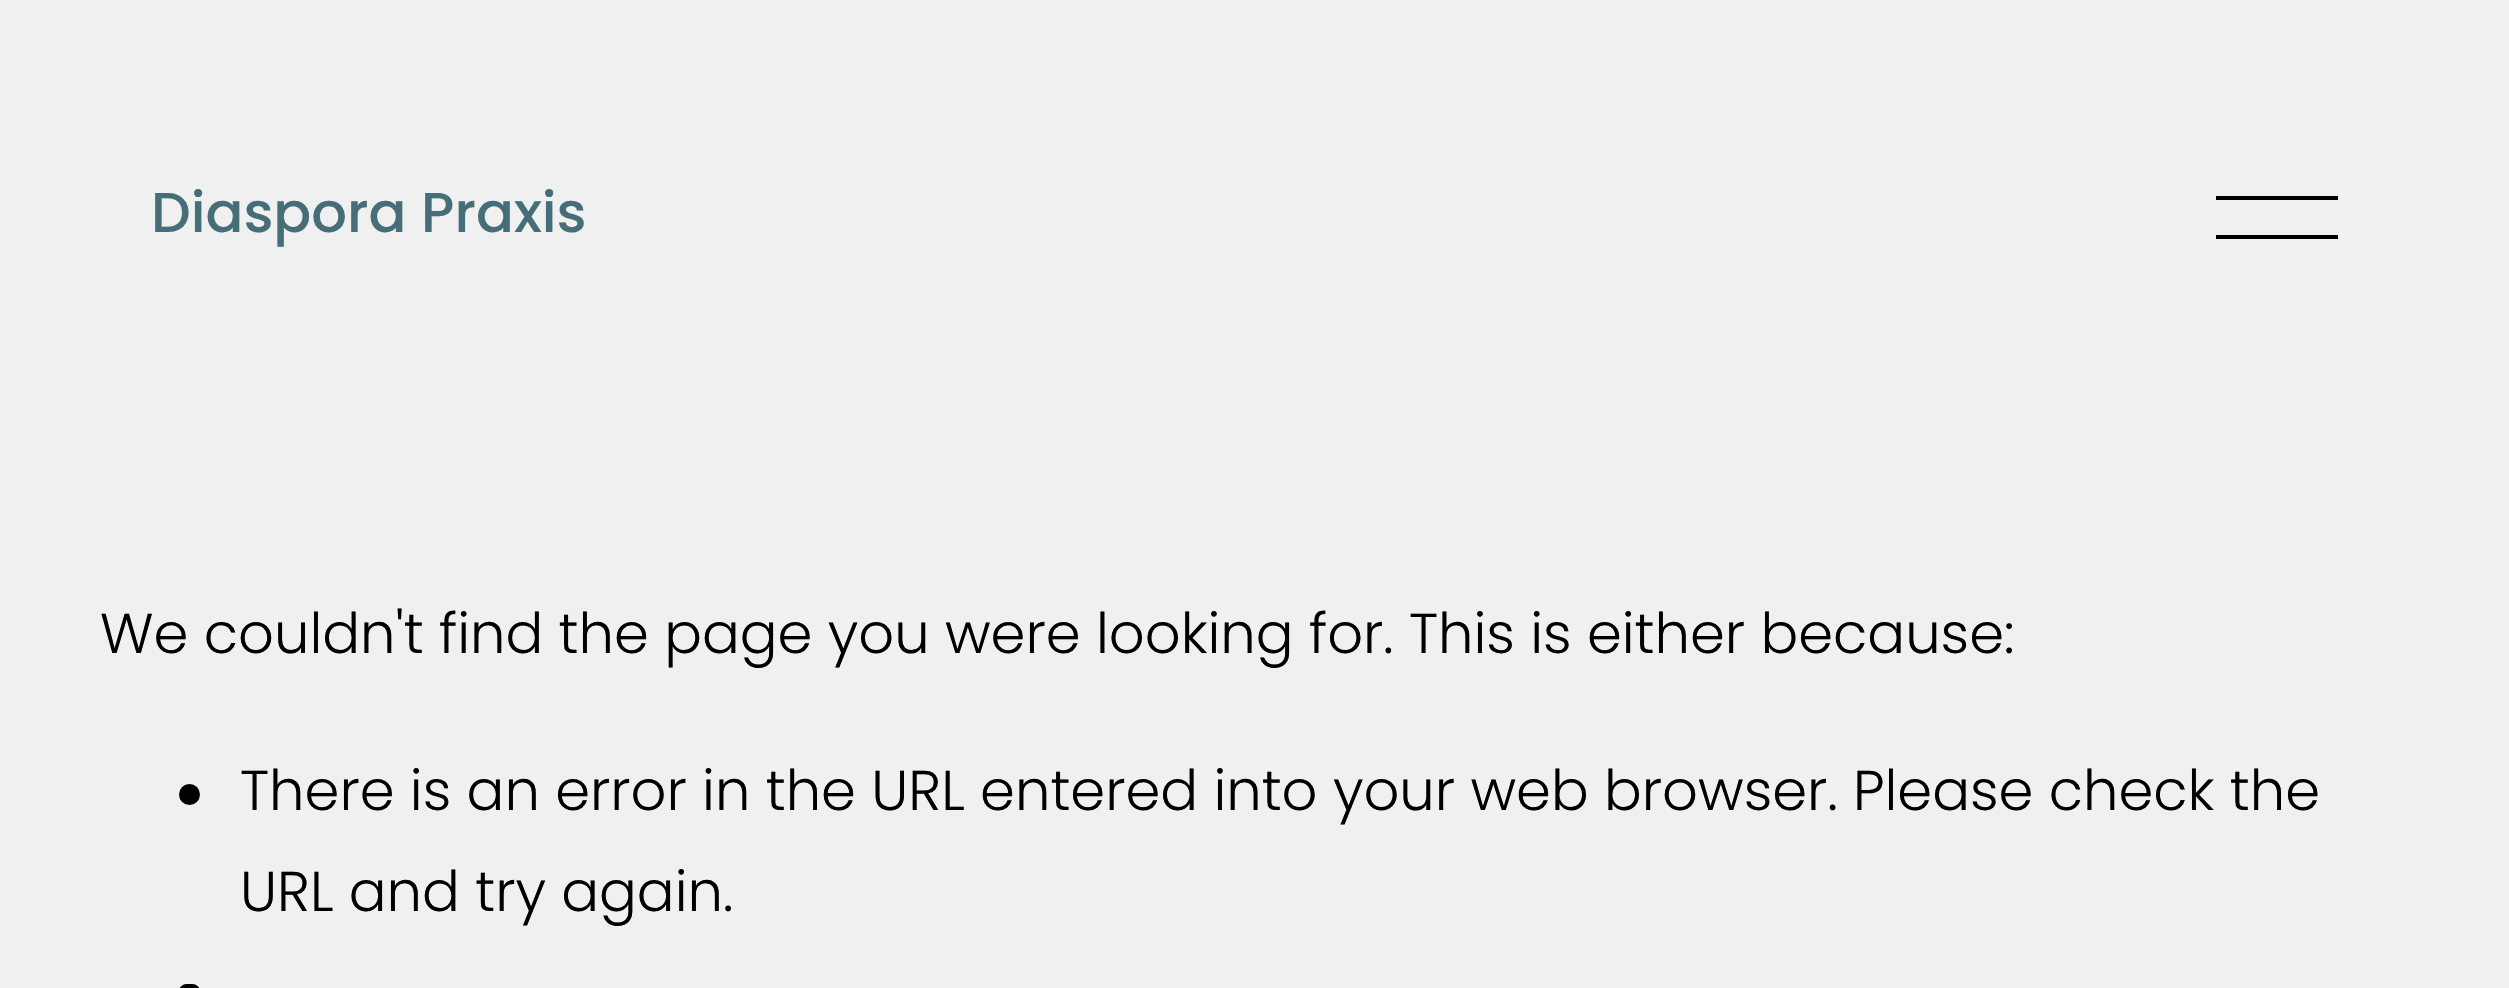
void draw(SkCanvas* canvas) {
	SkPaint paint;
	paint.setAntiAlias(true);
	canvas->clear(0xfff0f0f0);
	SkFont f1(fontMgr->matchFamilyStyle("Poppins", SkFontStyle(500, SkFontStyle::kNormal_Width, SkFontStyle::kUpright_Slant)), 56);
	f1.setSubpixel(true);
	paint.setColor(0xff466e78);
	canvas->drawString("Diaspora Praxis", 151, 232, f1, paint);
	paint.setColor(0xff000000);
	canvas->drawRect(SkRect::MakeXYWH(2216, 196, 122, 4), paint);
	canvas->drawRect(SkRect::MakeXYWH(2216, 235, 122, 4), paint);
	SkFont f2(fontMgr->matchFamilyStyle("Poppins", SkFontStyle(300, SkFontStyle::kNormal_Width, SkFontStyle::kUpright_Slant)), 56);
	f2.setSubpixel(true);
	canvas->drawString("We couldn't find the page you were looking for. This is either because:", 100, 653, f2, paint);
	canvas->drawCircle(189.5, 794.5, 10.5, paint);
	canvas->drawString("There is an error in the URL entered into your web browser. Please check the", 240, 810, f2, paint);
	canvas->drawString("URL and try again.", 240, 911, f2, paint);
	canvas->drawRoundRect(SkRect::MakeXYWH(179, 984, 21, 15), 10.5, 10.5, paint);
}
